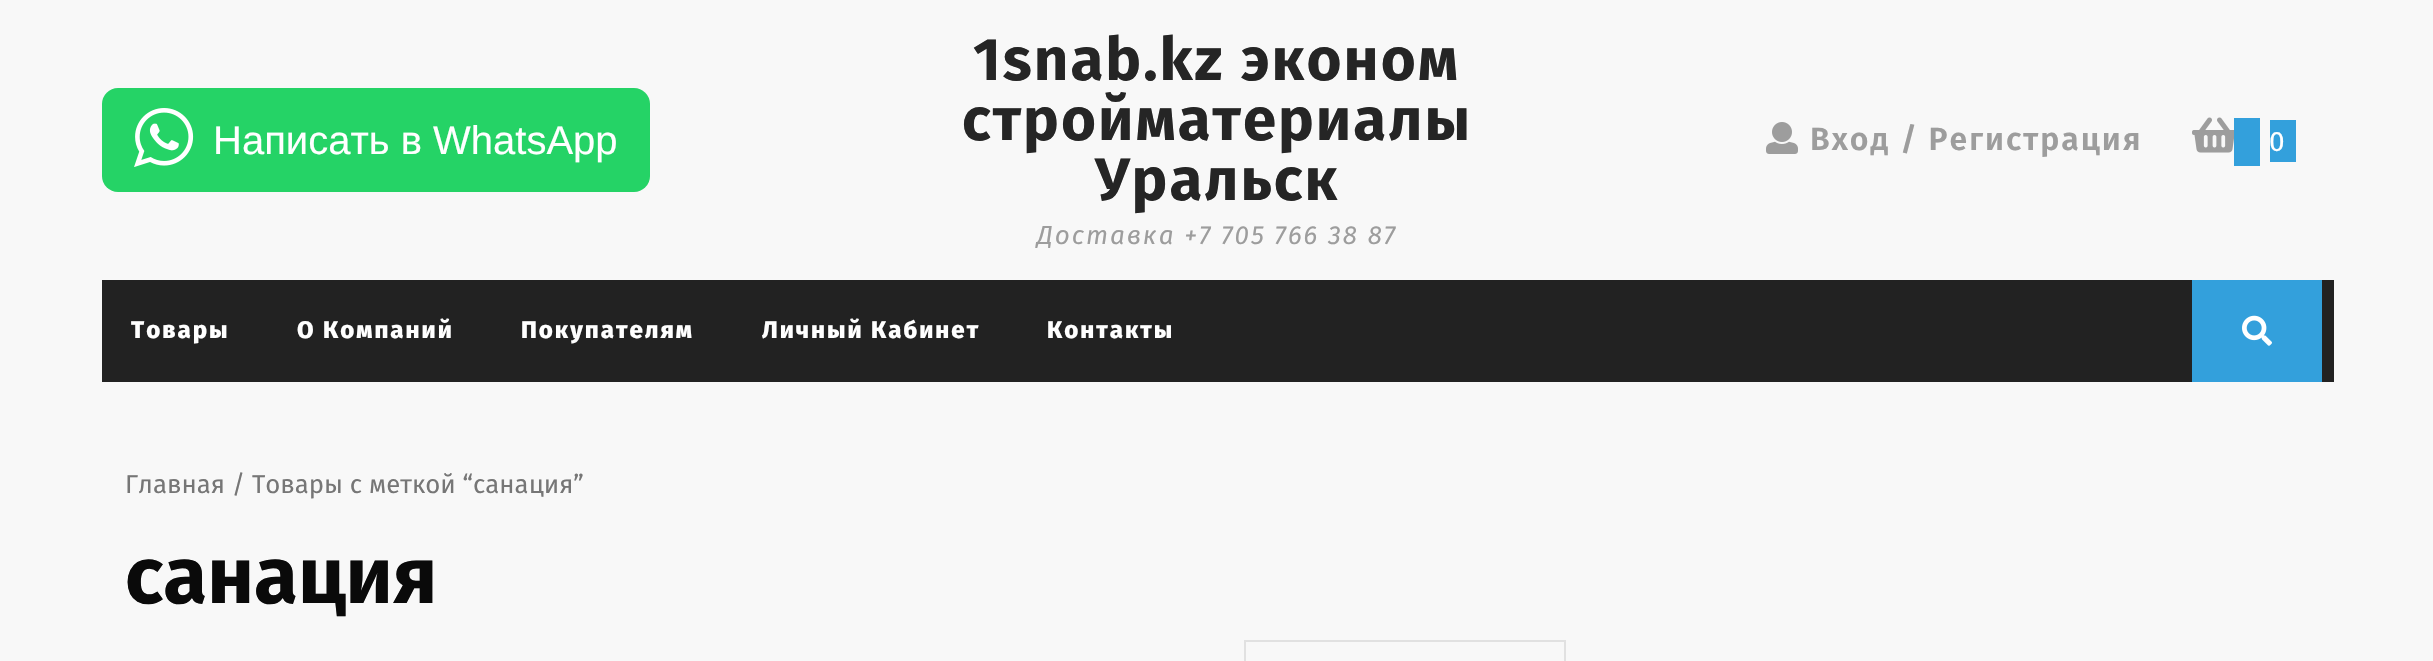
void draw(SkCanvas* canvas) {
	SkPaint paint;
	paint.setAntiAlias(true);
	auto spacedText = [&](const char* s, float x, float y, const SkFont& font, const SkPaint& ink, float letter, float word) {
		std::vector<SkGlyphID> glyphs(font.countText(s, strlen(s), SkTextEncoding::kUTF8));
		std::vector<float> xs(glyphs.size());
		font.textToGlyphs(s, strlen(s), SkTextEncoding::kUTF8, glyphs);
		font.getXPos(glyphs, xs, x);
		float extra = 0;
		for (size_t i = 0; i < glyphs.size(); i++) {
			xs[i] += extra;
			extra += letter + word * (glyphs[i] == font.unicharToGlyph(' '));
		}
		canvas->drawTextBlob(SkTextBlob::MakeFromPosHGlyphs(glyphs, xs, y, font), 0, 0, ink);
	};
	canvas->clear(0xfff8f8f8);
	paint.setColor(0xff25d366);
	canvas->drawRoundRect(SkRect::MakeXYWH(102, 88, 548, 104), 16, 16, paint);
	canvas->drawImageRect(SkImages::DeferredFromEncodedData(SkData::MakeFromFileName("img1.png")), SkRect::MakeXYWH(134, 108, 60, 59), SkSamplingOptions());
	SkFont f1(fontMgr->matchFamilyStyle("Liberation Sans", SkFontStyle::Normal()), 40);
	f1.setSubpixel(true);
	paint.setColor(0xffffffff);
	canvas->drawString("Написать в WhatsApp", 213, 154, f1, paint);
	SkFont f2(fontMgr->matchFamilyStyle("Fira Sans", SkFontStyle::Bold()), 60);
	f2.setSubpixel(true);
	paint.setColor(0xff252525);
	spacedText("1snab.kz эконом", 973, 80, f2, paint, 2, 0);
	spacedText("стройматериалы", 962, 140, f2, paint, 2, 0);
	spacedText("Уральск", 1095, 200, f2, paint, 2, 0);
	SkFont f3(fontMgr->matchFamilyStyle("Fira Sans", SkFontStyle::Italic()), 26);
	f3.setSubpixel(true);
	paint.setColor(0xff9d9d9d);
	spacedText("Доставка +7 705 766 38 87", 1037, 244, f3, paint, 2, 0);
	canvas->drawImageRect(SkImages::DeferredFromEncodedData(SkData::MakeFromFileName("img2.png")), SkRect::MakeXYWH(1766, 122, 32, 32), SkSamplingOptions());
	SkFont f4(fontMgr->matchFamilyStyle("Fira Sans", SkFontStyle(600, SkFontStyle::kNormal_Width, SkFontStyle::kUpright_Slant)), 32);
	f4.setSubpixel(true);
	spacedText("Вход / Регистрация", 1810, 150, f4, paint, 2, 0);
	canvas->drawImageRect(SkImages::DeferredFromEncodedData(SkData::MakeFromFileName("img3.png")), SkRect::MakeXYWH(2192, 117, 42, 36), SkSamplingOptions());
	paint.setColor(0xff33a0dc);
	canvas->drawRect(SkRect::MakeXYWH(2270, 120, 26, 42), paint);
	SkFont f5(fontMgr->matchFamilyStyle("Fira Sans", SkFontStyle::Normal()), 28);
	f5.setSubpixel(true);
	paint.setColor(0xffffffff);
	canvas->drawString("0", 2269, 151, f5, paint);
	paint.setColor(0xff33a0dc);
	canvas->drawRect(SkRect::MakeXYWH(2234, 118, 26, 48), paint);
	paint.setColor(0xff222222);
	canvas->drawRect(SkRect::MakeXYWH(102, 280, 2232, 102), paint);
	SkFont f6(fontMgr->matchFamilyStyle("Fira Sans", SkFontStyle(800, SkFontStyle::kNormal_Width, SkFontStyle::kUpright_Slant)), 24);
	f6.setSubpixel(true);
	paint.setColor(0xffffffff);
	spacedText("Товары", 131, 338, f6, paint, 2, 0);
	spacedText("О Компаний", 297, 338, f6, paint, 2, 0);
	spacedText("Покупателям", 521, 338, f6, paint, 2, 0);
	spacedText("Личный Кабинет", 762, 338, f6, paint, 2, 0);
	spacedText("Контакты", 1047, 338, f6, paint, 2, 0);
	paint.setColor(0xff33a0dc);
	canvas->drawRect(SkRect::MakeXYWH(2192, 280, 130, 102), paint);
	canvas->drawImageRect(SkImages::DeferredFromEncodedData(SkData::MakeFromFileName("img4.png")), SkRect::MakeXYWH(2242, 315, 30, 31), SkSamplingOptions());
	SkFont f7(fontMgr->matchFamilyStyle("Fira Sans", SkFontStyle::Normal()), 25.75);
	f7.setSubpixel(true);
	paint.setColor(0xff767676);
	canvas->drawString("Главная / Товары с меткой “санация”", 125, 493, f7, paint);
	SkFont f8(fontMgr->matchFamilyStyle("Fira Sans", SkFontStyle::Bold()), 80);
	f8.setSubpixel(true);
	paint.setColor(0xff0a0a0a);
	canvas->drawString("санация", 125, 603, f8, paint);
	paint.setStroke(true);
	paint.setStrokeWidth(2);
	paint.setColor(0xffe1e1e1);
	canvas->drawRect(SkRect::MakeXYWH(1245, 641, 320, 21), paint);
}
